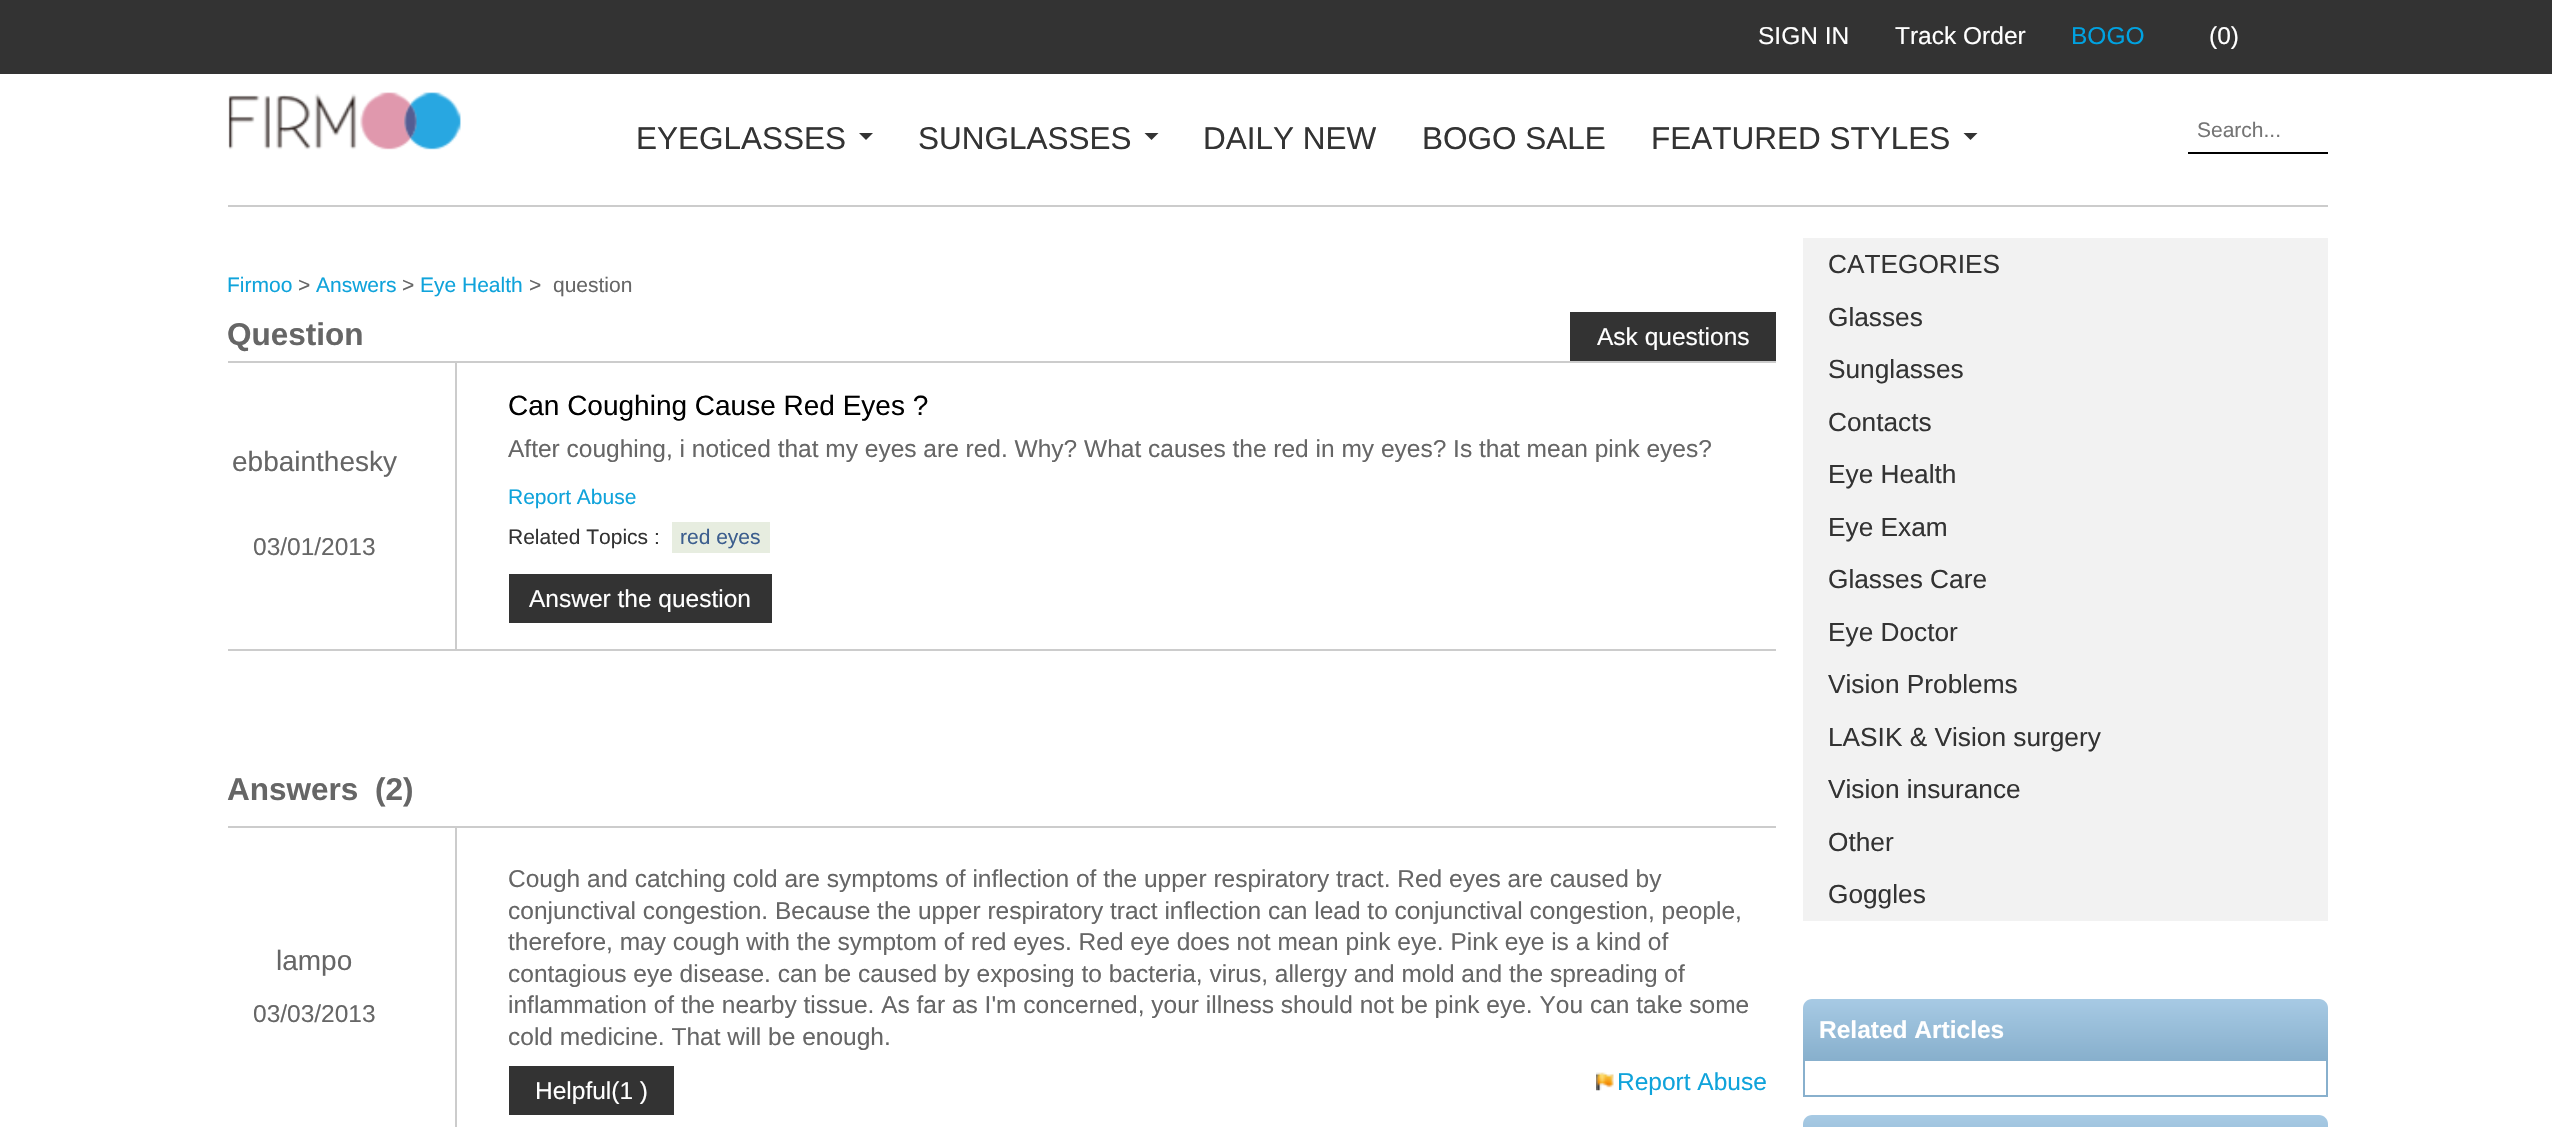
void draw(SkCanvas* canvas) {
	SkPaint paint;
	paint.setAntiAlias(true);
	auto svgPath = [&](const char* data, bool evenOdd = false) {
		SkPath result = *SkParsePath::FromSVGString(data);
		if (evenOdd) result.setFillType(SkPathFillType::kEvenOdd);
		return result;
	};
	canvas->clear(0xffffffff);
	paint.setColor(0xff333333);
	canvas->drawRect(SkRect::MakeXYWH(0, 0, 2552, 74), paint);
	SkFont f1(fontMgr->matchFamilyStyle("Liberation Sans", SkFontStyle::Normal()), 24.5);
	f1.setSubpixel(true);
	paint.setColor(0xffffffff);
	canvas->drawString("SIGN IN", 1758, 44, f1, paint);
	canvas->drawString("Track Order", 1895, 44, f1, paint);
	paint.setColor(0xff00a2e1);
	canvas->drawString("BOGO", 2071, 44, f1, paint);
	paint.setColor(0xffffffff);
	canvas->drawString("(0)", 2209, 44, f1, paint);
	canvas->drawImageRect(SkImages::DeferredFromEncodedData(SkData::MakeFromFileName("img1.png")), SkRect::MakeXYWH(228, 92, 233, 58), SkSamplingOptions());
	SkFont f2(fontMgr->matchFamilyStyle("Liberation Sans", SkFontStyle::Normal()), 31.5);
	f2.setSubpixel(true);
	paint.setColor(0xff333333);
	canvas->drawString("EYEGLASSES", 636, 149, f2, paint);
	canvas->drawPath(svgPath("M859 133H873L866 140Z"), paint);
	canvas->drawString("SUNGLASSES", 918, 149, f2, paint);
	canvas->drawPath(svgPath("M1144.5 133H1158.5L1151.5 140Z"), paint);
	canvas->drawString("DAILY NEW", 1203, 149, f2, paint);
	canvas->drawString("BOGO SALE", 1422, 149, f2, paint);
	canvas->drawString("FEATURED STYLES", 1651, 149, f2, paint);
	canvas->drawPath(svgPath("M1963.5 133H1977.5L1970.5 140Z"), paint);
	paint.setColor(0xffcccccc);
	canvas->drawRect(SkRect::MakeXYWH(228, 205, 2100, 2), paint);
	paint.setColor(0xff000000);
	canvas->drawRect(SkRect::MakeXYWH(2188, 152, 140, 2), paint);
	SkFont f3(fontMgr->matchFamilyStyle("Liberation Sans", SkFontStyle::Normal()), 21);
	f3.setSubpixel(true);
	paint.setColor(0xff757575);
	canvas->drawString("Search...", 2197, 137, f3, paint);
	paint.setColor(0xfff2f2f2);
	canvas->drawRect(SkRect::MakeXYWH(1803, 238, 525, 683), paint);
	SkFont f4(fontMgr->matchFamilyStyle("Liberation Sans", SkFontStyle::Normal()), 26.25);
	f4.setSubpixel(true);
	paint.setColor(0xff333333);
	canvas->drawString("CATEGORIES", 1828, 273, f4, paint);
	canvas->drawString("Glasses", 1828, 326, f4, paint);
	canvas->drawString("Sunglasses", 1828, 378, f4, paint);
	canvas->drawString("Contacts", 1828, 431, f4, paint);
	canvas->drawString("Eye Health", 1828, 483, f4, paint);
	canvas->drawString("Eye Exam", 1828, 536, f4, paint);
	canvas->drawString("Glasses Care", 1828, 588, f4, paint);
	canvas->drawString("Eye Doctor", 1828, 641, f4, paint);
	canvas->drawString("Vision Problems", 1828, 693, f4, paint);
	canvas->drawString("LASIK & Vision surgery", 1828, 746, f4, paint);
	canvas->drawString("Vision insurance", 1828, 798, f4, paint);
	canvas->drawString("Other", 1828, 851, f4, paint);
	canvas->drawString("Goggles", 1828, 903, f4, paint);
	paint.setColor(0xff0fa3db);
	canvas->drawString("Firmoo", 227, 292, f3, paint);
	paint.setColor(0xff666666);
	canvas->drawString(">", 298, 292, f3, paint);
	paint.setColor(0xff0fa3db);
	canvas->drawString("Answers", 316, 292, f3, paint);
	paint.setColor(0xff666666);
	canvas->drawString(">", 402, 292, f3, paint);
	paint.setColor(0xff0fa3db);
	canvas->drawString("Eye Health", 420, 292, f3, paint);
	paint.setColor(0xff666666);
	canvas->drawString(">", 529, 292, f3, paint);
	canvas->drawString("question", 553, 292, f3, paint);
	SkFont f5(fontMgr->matchFamilyStyle("Liberation Sans", SkFontStyle::Bold()), 31.5);
	f5.setSubpixel(true);
	canvas->drawString("Question", 227, 345, f5, paint);
	paint.setColor(0xff333333);
	canvas->drawRect(SkRect::MakeXYWH(1570, 312, 206, 49), paint);
	paint.setColor(0xffffffff);
	canvas->drawString("Ask questions", 1597, 345, f1, paint);
	paint.setColor(0xffcccccc);
	canvas->drawRect(SkRect::MakeXYWH(228, 361, 1548, 2), paint);
	canvas->drawRect(SkRect::MakeXYWH(228, 649, 1548, 2), paint);
	SkFont f6(fontMgr->matchFamilyStyle("Liberation Sans", SkFontStyle::Normal()), 28);
	f6.setSubpixel(true);
	paint.setColor(0xff666666);
	canvas->drawString("ebbainthesky", 232, 471, f6, paint);
	canvas->drawString("03/01/2013", 253, 555, f1, paint);
	paint.setColor(0xffcccccc);
	canvas->drawRect(SkRect::MakeXYWH(455, 362, 2, 287), paint);
	paint.setColor(0xff000000);
	canvas->drawString("Can Coughing Cause Red Eyes ?", 508, 415, f6, paint);
	paint.setColor(0xff666666);
	canvas->drawString("After coughing, i noticed that my eyes are red. Why? What causes the red in my eyes? Is that mean pink eyes?", 508, 457, f1, paint);
	paint.setColor(0xff0fa3db);
	canvas->drawString("Report Abuse", 508, 504, f3, paint);
	paint.setColor(0xff333333);
	canvas->drawString("Related Topics :", 508, 544, f3, paint);
	paint.setColor(0xffe7ede0);
	canvas->drawRect(SkRect::MakeXYWH(672, 522, 98, 31), paint);
	paint.setColor(0xff3c5e8e);
	canvas->drawString("red eyes", 680, 544, f3, paint);
	paint.setColor(0xff333333);
	canvas->drawRect(SkRect::MakeXYWH(509, 574, 263, 49), paint);
	paint.setColor(0xffffffff);
	canvas->drawString("Answer the question", 529, 607, f1, paint);
	paint.setColor(0xff666666);
	canvas->drawString("Answers", 227, 800, f5, paint);
	canvas->drawString("(2)", 375, 800, f5, paint);
	paint.setColor(0xffcccccc);
	canvas->drawRect(SkRect::MakeXYWH(228, 826, 1548, 2), paint);
	paint.setColor(0xff666666);
	canvas->drawString("lampo", 276, 970, f6, paint);
	canvas->drawString("03/03/2013", 253, 1022, f1, paint);
	paint.setColor(0xffcccccc);
	canvas->drawRect(SkRect::MakeXYWH(455, 828, 2, 299), paint);
	paint.setColor(0xff666666);
	canvas->drawString("Cough and catching cold are symptoms of inflection of the upper respiratory tract. Red eyes are caused by", 508, 887, f1, paint);
	canvas->drawString("conjunctival congestion. Because the upper respiratory tract inflection can lead to conjunctival congestion, people,", 508, 919, f1, paint);
	canvas->drawString("therefore, may cough with the symptom of red eyes. Red eye does not mean pink eye. Pink eye is a kind of", 508, 950, f1, paint);
	canvas->drawString("contagious eye disease. can be caused by exposing to bacteria, virus, allergy and mold and the spreading of", 508, 982, f1, paint);
	canvas->drawString("inflammation of the nearby tissue. As far as I'm concerned, your illness should not be pink eye. You can take some", 508, 1013, f1, paint);
	canvas->drawString("cold medicine. That will be enough.", 508, 1045, f1, paint);
	paint.setColor(0xff333333);
	canvas->drawRect(SkRect::MakeXYWH(509, 1066, 165, 49), paint);
	paint.setColor(0xffffffff);
	canvas->drawString("Helpful(1 )", 535, 1099, f1, paint);
	canvas->drawImageRect(SkImages::DeferredFromEncodedData(SkData::MakeFromFileName("img2.png")), SkRect::MakeXYWH(1596, 1072, 18, 19), SkSamplingOptions());
	paint.setColor(0xff0fa3db);
	canvas->drawString("Report Abuse", 1617, 1090, f1, paint);
	{
		const SkColor colors[] = {0xffa7cae4, 0xff88b0cd};
		const float stops[] = {0, 1};
		const SkPoint ends[] = {{1803, 999}, {1803, 1059}};
		paint.setShader(SkGradientShader::MakeLinear(ends, colors, stops, 2, SkTileMode::kClamp));
		paint.setAlpha(255);
	}
	canvas->drawPath(svgPath("M1812 999H2319C2324 999 2328 1003 2328 1008V1059H1803V1008C1803 1003 1807 999 1812 999Z"), paint);
	SkFont f7(fontMgr->matchFamilyStyle("Liberation Sans", SkFontStyle::Bold()), 24.5);
	f7.setSubpixel(true);
	paint.setShader(nullptr);
	paint.setColor(0xffffffff);
	canvas->drawString("Related Articles", 1819, 1038, f7, paint);
	paint.setStroke(true);
	paint.setStrokeWidth(2);
	paint.setColor(0xff88b0cd);
	canvas->drawRect(SkRect::MakeXYWH(1804, 1060, 523, 36), paint);
	paint.setStroke(false);
	{
		const SkColor colors[] = {0xffa7cae4, 0xff88b0cd};
		const float stops[] = {0, 1};
		const SkPoint ends[] = {{1803, 1115}, {1803, 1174}};
		paint.setShader(SkGradientShader::MakeLinear(ends, colors, stops, 2, SkTileMode::kClamp));
		paint.setAlpha(255);
	}
	canvas->drawPath(svgPath("M1812 1115H2319C2324 1115 2328 1119 2328 1124V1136H1803V1124C1803 1119 1807 1115 1812 1115Z"), paint);
}
